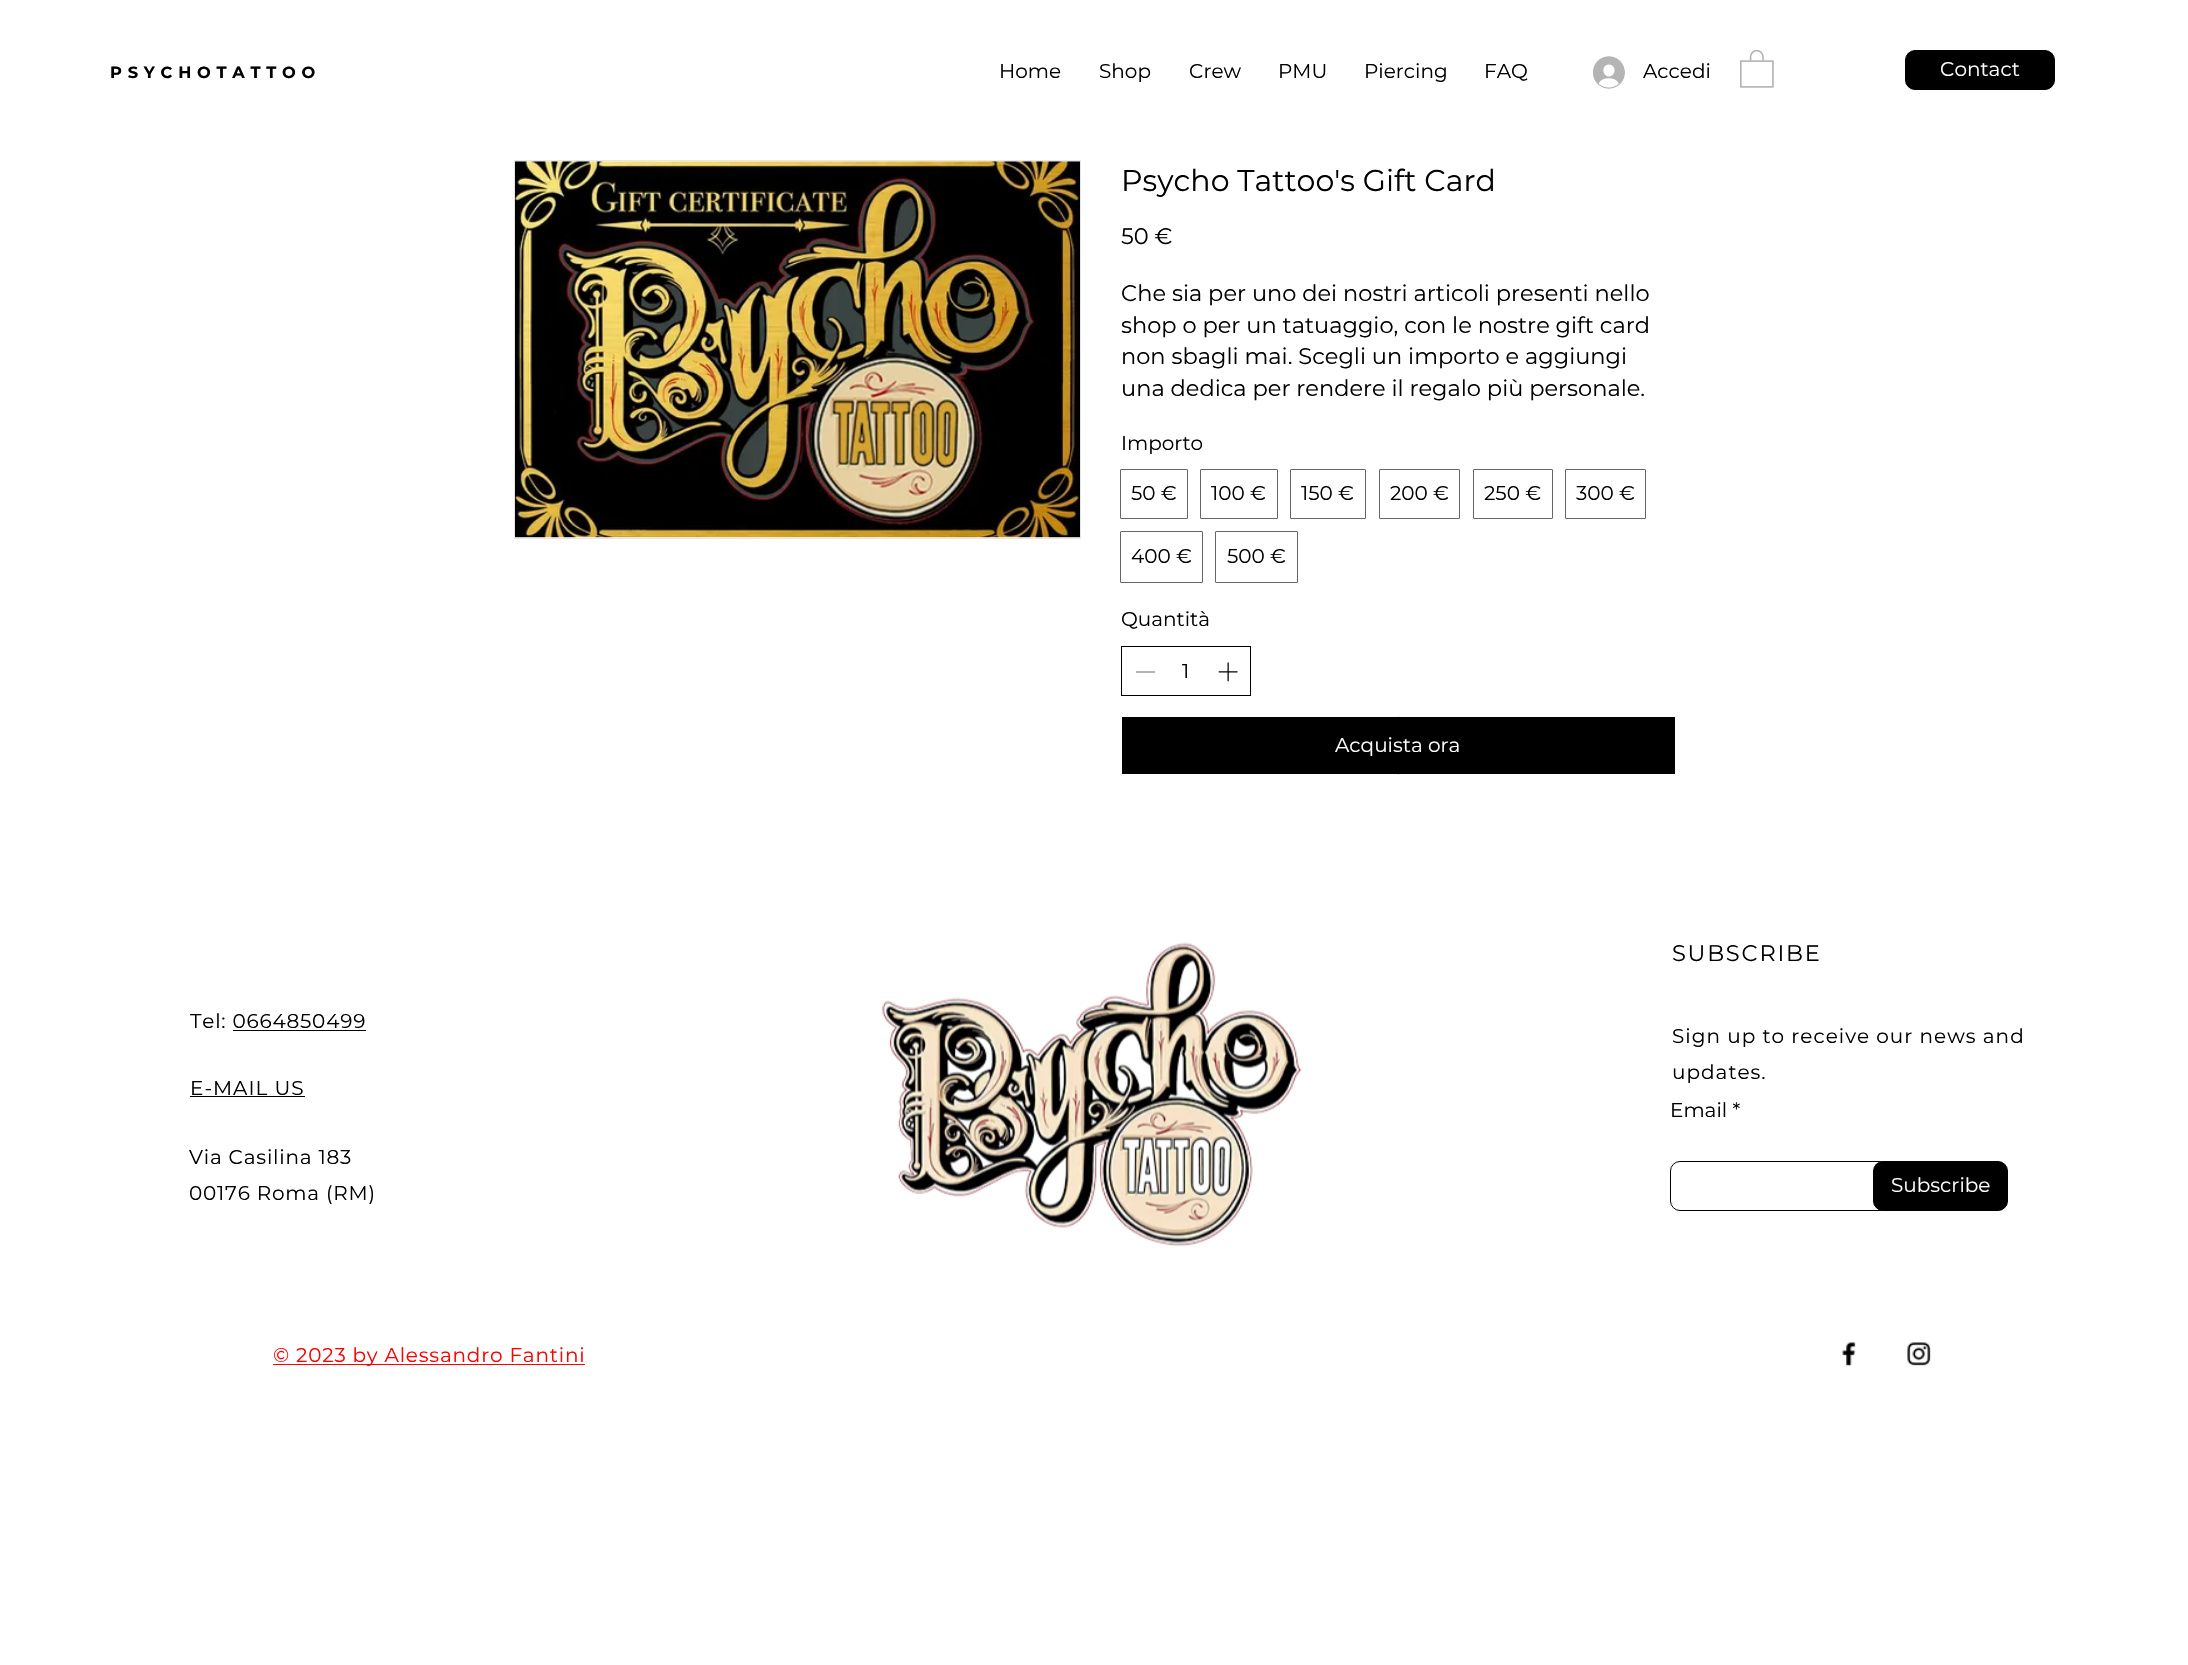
void draw(SkCanvas* canvas) {
	SkPaint paint;
	paint.setAntiAlias(true);
	auto spacedText = [&](const char* s, float x, float y, const SkFont& font, const SkPaint& ink, float letter, float word) {
		std::vector<SkGlyphID> glyphs(font.countText(s, strlen(s), SkTextEncoding::kUTF8));
		std::vector<float> xs(glyphs.size());
		font.textToGlyphs(s, strlen(s), SkTextEncoding::kUTF8, glyphs);
		font.getXPos(glyphs, xs, x);
		float extra = 0;
		for (size_t i = 0; i < glyphs.size(); i++) {
			xs[i] += extra;
			extra += letter + word * (glyphs[i] == font.unicharToGlyph(' '));
		}
		canvas->drawTextBlob(SkTextBlob::MakeFromPosHGlyphs(glyphs, xs, y, font), 0, 0, ink);
	};
	canvas->clear(0xffffffff);
	SkFont f1(fontMgr->matchFamilyStyle("Montserrat", SkFontStyle::Bold()), 16.25);
	f1.setSubpixel(true);
	paint.setColor(0xff000000);
	spacedText("PSYCHOTATTOO", 110, 78, f1, paint, 5.75, 0);
	SkFont f2(fontMgr->matchFamilyStyle("Montserrat", SkFontStyle::Normal()), 20);
	f2.setSubpixel(true);
	canvas->drawString("Home", 999, 78, f2, paint);
	canvas->drawString("Shop", 1099, 78, f2, paint);
	canvas->drawString("Crew", 1189, 78, f2, paint);
	canvas->drawString("PMU", 1278, 78, f2, paint);
	canvas->drawString("Piercing", 1364, 78, f2, paint);
	canvas->drawString("FAQ", 1484, 78, f2, paint);
	canvas->drawImageRect(SkImages::DeferredFromEncodedData(SkData::MakeFromFileName("img1.png")), SkRect::MakeXYWH(1593, 56, 32, 33), SkSamplingOptions());
	canvas->drawString("Accedi", 1643, 78, f2, paint);
	canvas->drawImageRect(SkImages::DeferredFromEncodedData(SkData::MakeFromFileName("img2.png")), SkRect::MakeXYWH(1740, 49, 34, 39), SkSamplingOptions());
	canvas->drawRoundRect(SkRect::MakeXYWH(1905.5, 50.5, 149, 39), 9.5, 9.5, paint);
	paint.setStroke(true);
	paint.setStrokeWidth(1);
	canvas->drawRoundRect(SkRect::MakeXYWH(1905.5, 50.5, 149, 39), 9.5, 9.5, paint);
	paint.setStroke(false);
	paint.setColor(0xffffffff);
	canvas->drawString("Contact", 1940, 76, f2, paint);
	paint.setStroke(true);
	paint.setColor(0xffe8e6e6);
	canvas->drawRect(SkRect::MakeXYWH(514.5, 160.5, 566, 378), paint);
	canvas->drawImageRect(SkImages::DeferredFromEncodedData(SkData::MakeFromFileName("img3.png")), SkRect::MakeXYWH(515, 161, 565, 377), SkSamplingOptions());
	SkFont f3(fontMgr->matchFamilyStyle("Montserrat", SkFontStyle::Normal()), 30);
	f3.setSubpixel(true);
	paint.setStroke(false);
	paint.setColor(0xff000000);
	canvas->drawString("Psycho Tattoo's Gift Card", 1121, 191, f3, paint);
	SkFont f4(fontMgr->matchFamilyStyle("Montserrat", SkFontStyle::Normal()), 22.5);
	f4.setSubpixel(true);
	canvas->drawString("50 €", 1121, 244, f4, paint);
	canvas->drawString("Che sia per uno dei nostri articoli presenti nello", 1121, 301, f4, paint);
	canvas->drawString("shop o per un tatuaggio, con le nostre gift card", 1121, 333, f4, paint);
	canvas->drawString("non sbagli mai. Scegli un importo e aggiungi", 1121, 364, f4, paint);
	canvas->drawString("una dedica per rendere il regalo più personale.", 1121, 396, f4, paint);
	canvas->drawString("Importo", 1121, 450, f2, paint);
	paint.setStroke(true);
	paint.setColor(0xff666666);
	canvas->drawRoundRect(SkRect::MakeXYWH(1120.5, 469.5, 67, 49), 0.5, 0.5, paint);
	paint.setStroke(false);
	paint.setColor(0xff000000);
	canvas->drawString("50 €", 1131, 500, f2, paint);
	paint.setStroke(true);
	paint.setColor(0xff666666);
	canvas->drawRoundRect(SkRect::MakeXYWH(1200.5, 469.5, 77, 49), 0.5, 0.5, paint);
	paint.setStroke(false);
	paint.setColor(0xff000000);
	canvas->drawString("100 €", 1211, 500, f2, paint);
	paint.setStroke(true);
	paint.setColor(0xff666666);
	canvas->drawRoundRect(SkRect::MakeXYWH(1290.5, 469.5, 75, 49), 0.5, 0.5, paint);
	paint.setStroke(false);
	paint.setColor(0xff000000);
	canvas->drawString("150 €", 1301, 500, f2, paint);
	paint.setStroke(true);
	paint.setColor(0xff666666);
	canvas->drawRoundRect(SkRect::MakeXYWH(1379.5, 469.5, 80, 49), 0.5, 0.5, paint);
	paint.setStroke(false);
	paint.setColor(0xff000000);
	canvas->drawString("200 €", 1390, 500, f2, paint);
	paint.setStroke(true);
	paint.setColor(0xff666666);
	canvas->drawRoundRect(SkRect::MakeXYWH(1473.5, 469.5, 79, 49), 0.5, 0.5, paint);
	paint.setStroke(false);
	paint.setColor(0xff000000);
	canvas->drawString("250 €", 1484, 500, f2, paint);
	paint.setStroke(true);
	paint.setColor(0xff666666);
	canvas->drawRoundRect(SkRect::MakeXYWH(1565.5, 469.5, 80, 49), 0.5, 0.5, paint);
	paint.setStroke(false);
	paint.setColor(0xff000000);
	canvas->drawString("300 €", 1576, 500, f2, paint);
	paint.setStroke(true);
	paint.setColor(0xff666666);
	canvas->drawRoundRect(SkRect::MakeXYWH(1120.5, 531.5, 82, 51), 0.5, 0.5, paint);
	paint.setStroke(false);
	paint.setColor(0xff000000);
	canvas->drawString("400 €", 1131, 563, f2, paint);
	paint.setStroke(true);
	paint.setColor(0xff666666);
	canvas->drawRoundRect(SkRect::MakeXYWH(1215.5, 531.5, 82, 51), 0.5, 0.5, paint);
	paint.setStroke(false);
	paint.setColor(0xff000000);
	canvas->drawString("500 €", 1227, 563, f2, paint);
	canvas->drawString("Quantità", 1121, 626, f2, paint);
	paint.setStroke(true);
	canvas->drawRect(SkRect::MakeXYWH(1121.5, 646.5, 129, 49), paint);
	paint.setStroke(false);
	paint.setColor(0xffb4b4b4);
	canvas->drawRect(SkRect::MakeXYWH(1136, 671, 19, 2), paint);
	paint.setColor(0xff000000);
	canvas->drawString("1", 1182, 678, f2, paint);
	canvas->drawImageRect(SkImages::DeferredFromEncodedData(SkData::MakeFromFileName("img4.png")), SkRect::MakeXYWH(1218, 662, 20, 20), SkSamplingOptions());
	canvas->drawRoundRect(SkRect::MakeXYWH(1121.5, 716.5, 554, 58), 0.5, 0.5, paint);
	paint.setStroke(true);
	paint.setColor(0xffffffff);
	canvas->drawRoundRect(SkRect::MakeXYWH(1121.5, 716.5, 554, 58), 0.5, 0.5, paint);
	paint.setStroke(false);
	canvas->drawString("Acquista ora", 1335, 752, f2, paint);
	paint.setColor(0xff000000);
	spacedText("Tel: 0664850499", 190, 1028, f2, paint, 0.8, 0);
	canvas->drawRect(SkRect::MakeXYWH(233, 1030, 133, 1), paint);
	spacedText("E-MAIL US", 190, 1095, f2, paint, 1, 0);
	canvas->drawRect(SkRect::MakeXYWH(190, 1096, 115, 1), paint);
	spacedText("Via Casilina 183", 189, 1164, f2, paint, 0.8, 0);
	spacedText("00176 Roma (RM)", 189, 1200, f2, paint, 0.8, 0);
	canvas->drawImageRect(SkImages::DeferredFromEncodedData(SkData::MakeFromFileName("img5.png")), SkRect::MakeXYWH(882, 942, 420, 305), SkSamplingOptions());
	spacedText("SUBSCRIBE", 1672, 961, f4, paint, 1.75, 0);
	spacedText("Sign up to receive our news and", 1672, 1043, f2, paint, 1, 0);
	spacedText("updates.", 1672, 1079, f2, paint, 1, 0);
	canvas->drawString("Email *", 1670, 1117, f2, paint);
	paint.setStroke(true);
	canvas->drawRoundRect(SkRect::MakeXYWH(1670.5, 1161.5, 219, 49), 9.5, 9.5, paint);
	paint.setStroke(false);
	canvas->drawRoundRect(SkRect::MakeXYWH(1873.5, 1161.5, 134, 49), 9.5, 9.5, paint);
	paint.setStroke(true);
	canvas->drawRoundRect(SkRect::MakeXYWH(1873.5, 1161.5, 134, 49), 9.5, 9.5, paint);
	paint.setStroke(false);
	paint.setColor(0xffffffff);
	canvas->drawString("Subscribe", 1891, 1192, f2, paint);
	paint.setColor(0xffff0000);
	canvas->drawRect(SkRect::MakeXYWH(273, 1364, 312, 1), paint);
	spacedText("© 2023 by Alessandro Fantini", 273, 1362, f2, paint, 0.8, 0);
	canvas->drawImageRect(SkImages::DeferredFromEncodedData(SkData::MakeFromFileName("img6.png")), SkRect::MakeXYWH(1842, 1342, 14, 25), SkSamplingOptions());
	canvas->drawImageRect(SkImages::DeferredFromEncodedData(SkData::MakeFromFileName("img7.png")), SkRect::MakeXYWH(1907, 1342, 24, 24), SkSamplingOptions());
}
